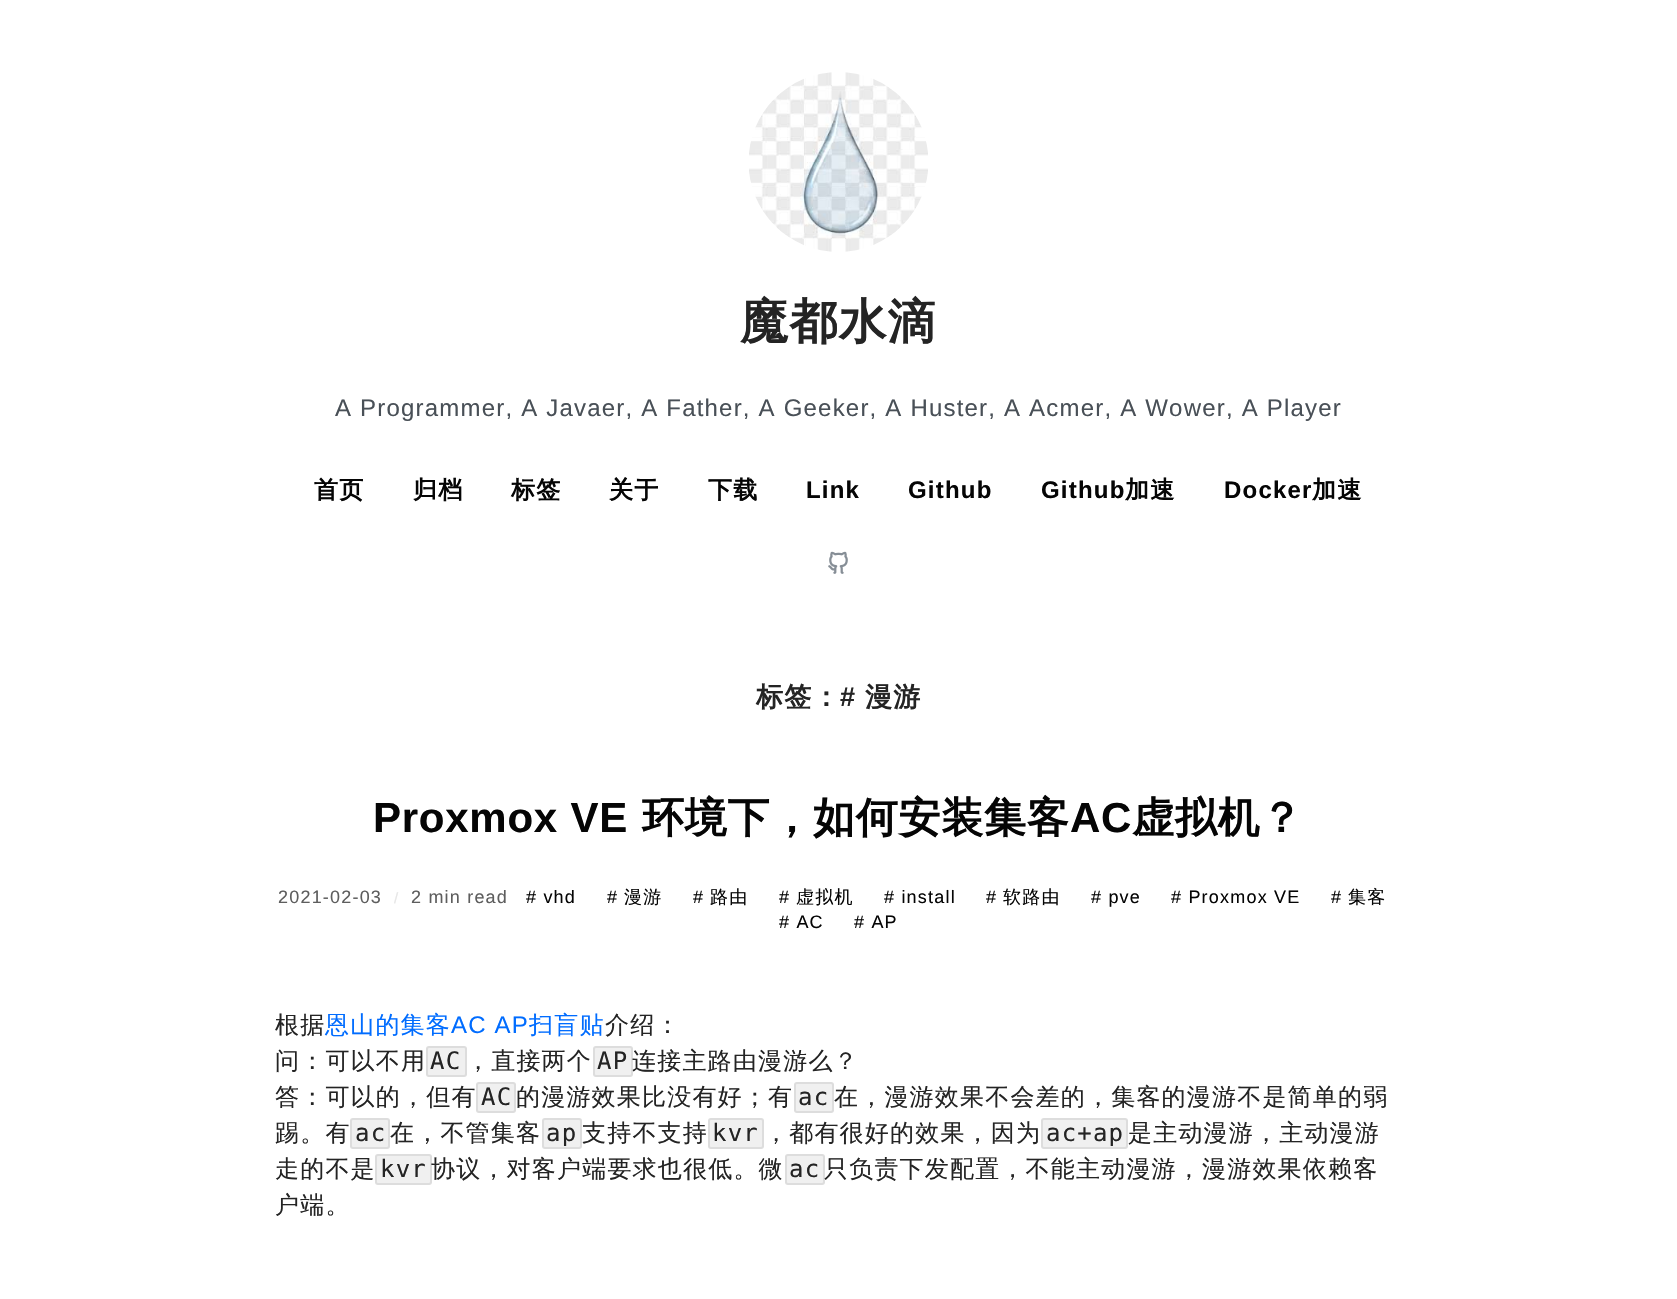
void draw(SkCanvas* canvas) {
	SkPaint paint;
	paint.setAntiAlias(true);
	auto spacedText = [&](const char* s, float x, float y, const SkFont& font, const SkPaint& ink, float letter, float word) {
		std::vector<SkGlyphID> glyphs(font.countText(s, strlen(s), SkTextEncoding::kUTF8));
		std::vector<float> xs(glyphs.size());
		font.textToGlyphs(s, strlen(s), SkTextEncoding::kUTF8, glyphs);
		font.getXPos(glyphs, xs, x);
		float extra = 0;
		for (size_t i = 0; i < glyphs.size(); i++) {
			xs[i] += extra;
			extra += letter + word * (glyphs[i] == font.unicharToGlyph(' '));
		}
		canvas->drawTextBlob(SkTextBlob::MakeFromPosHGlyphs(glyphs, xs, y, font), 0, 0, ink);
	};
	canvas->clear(0xffffffff);
	canvas->drawImageRect(SkImages::DeferredFromEncodedData(SkData::MakeFromFileName("img1.png")), SkRect::MakeXYWH(749, 72, 179, 180), SkSamplingOptions());
	SkFont f1(fontMgr->matchFamilyStyle("WenQuanYi Zen Hei", SkFontStyle::Bold()), 48);
	f1.setSubpixel(true);
	paint.setColor(0xff242424);
	spacedText("魔都水滴", 740, 338, f1, paint, 1.2, 0);
	SkFont f2(fontMgr->matchFamilyStyle("Liberation Sans", SkFontStyle::Normal()), 24);
	f2.setSubpixel(true);
	paint.setColor(0xff495057);
	spacedText("A Programmer, A Javaer, A Father, A Geeker, A Huster, A Acmer, A Wower, A Player", 335, 416, f2, paint, 1.2, 0);
	SkFont f3(fontMgr->matchFamilyStyle("WenQuanYi Zen Hei", SkFontStyle::Bold()), 24);
	f3.setSubpixel(true);
	paint.setColor(0xff050505);
	spacedText("首页", 314, 498, f3, paint, 1.2, 0);
	spacedText("归档", 413, 498, f3, paint, 1.2, 0);
	spacedText("标签", 511, 498, f3, paint, 1.2, 0);
	spacedText("关于", 609, 498, f3, paint, 1.2, 0);
	spacedText("下载", 708, 498, f3, paint, 1.2, 0);
	SkFont f4(fontMgr->matchFamilyStyle("Liberation Sans", SkFontStyle::Bold()), 24);
	f4.setSubpixel(true);
	spacedText("Link", 806, 498, f4, paint, 1.2, 0);
	spacedText("Github", 908, 498, f4, paint, 1.2, 0);
	spacedText("Github", 1041, 498, f4, paint, 1.2, 0);
	spacedText("加速", 1125, 498, f3, paint, 1.2, 0);
	spacedText("Docker", 1224, 498, f4, paint, 1.2, 0);
	spacedText("加速", 1312, 498, f3, paint, 1.2, 0);
	canvas->drawImageRect(SkImages::DeferredFromEncodedData(SkData::MakeFromFileName("img2.png")), SkRect::MakeXYWH(828, 551, 20, 23), SkSamplingOptions());
	SkFont f5(fontMgr->matchFamilyStyle("WenQuanYi Zen Hei", SkFontStyle::Bold()), 27);
	f5.setSubpixel(true);
	paint.setColor(0xff242424);
	spacedText("标签：", 756, 706, f5, paint, 1.2, 0);
	SkFont f6(fontMgr->matchFamilyStyle("Liberation Sans", SkFontStyle::Bold()), 27);
	f6.setSubpixel(true);
	spacedText("#", 840, 706, f6, paint, 1.2, 0);
	spacedText("漫游", 865, 706, f5, paint, 1.2, 0);
	SkFont f7(fontMgr->matchFamilyStyle("Liberation Sans", SkFontStyle::Bold()), 42);
	f7.setSubpixel(true);
	paint.setColor(0xff050505);
	spacedText("Proxmox VE", 373, 832, f7, paint, 0.75, 0);
	SkFont f8(fontMgr->matchFamilyStyle("WenQuanYi Zen Hei", SkFontStyle::Bold()), 42);
	f8.setSubpixel(true);
	spacedText("环境下，如何安装集客", 642, 832, f8, paint, 0.75, 0);
	spacedText("AC", 1070, 832, f7, paint, 0.75, 0);
	spacedText("虚拟机？", 1132, 832, f8, paint, 0.75, 0);
	SkFont f9(fontMgr->matchFamilyStyle("Liberation Sans", SkFontStyle::Normal()), 18);
	f9.setSubpixel(true);
	paint.setColor(0xff5e5e5e);
	spacedText("2021-02-03", 278, 903, f9, paint, 1.2, 0);
	SkFont f10(fontMgr->matchFamilyStyle("Liberation Sans", SkFontStyle::Normal()), 15);
	f10.setSubpixel(true);
	paint.setColor(0xffe6e6e6);
	spacedText("/", 394, 903, f10, paint, 1.2, 0);
	paint.setColor(0xff5e5e5e);
	spacedText("2 min read", 411, 903, f9, paint, 1.2, 0);
	paint.setColor(0xff050505);
	spacedText("# vhd", 526, 903, f9, paint, 1.2, 0);
	spacedText("#", 607, 903, f9, paint, 1.2, 0);
	SkFont f11(fontMgr->matchFamilyStyle("WenQuanYi Zen Hei", SkFontStyle(500, SkFontStyle::kNormal_Width, SkFontStyle::kUpright_Slant)), 18);
	f11.setSubpixel(true);
	spacedText("漫游", 624, 903, f11, paint, 1.2, 0);
	spacedText("#", 693, 903, f9, paint, 1.2, 0);
	spacedText("路由", 710, 903, f11, paint, 1.2, 0);
	spacedText("#", 779, 903, f9, paint, 1.2, 0);
	spacedText("虚拟机", 796, 903, f11, paint, 1.2, 0);
	spacedText("# install", 884, 903, f9, paint, 1.2, 0);
	spacedText("#", 986, 903, f9, paint, 1.2, 0);
	spacedText("软路由", 1003, 903, f11, paint, 1.2, 0);
	spacedText("# pve", 1091, 903, f9, paint, 1.2, 0);
	spacedText("# Proxmox VE", 1171, 903, f9, paint, 1.2, 0);
	spacedText("#", 1331, 903, f9, paint, 1.2, 0);
	spacedText("集客", 1348, 903, f11, paint, 1.2, 0);
	spacedText("# AC", 779, 928, f9, paint, 1.2, 0);
	spacedText("# AP", 854, 928, f9, paint, 1.2, 0);
	SkFont f12(fontMgr->matchFamilyStyle("WenQuanYi Zen Hei", SkFontStyle(500, SkFontStyle::kNormal_Width, SkFontStyle::kUpright_Slant)), 24);
	f12.setSubpixel(true);
	paint.setColor(0xff242424);
	spacedText("根据", 275, 1033, f12, paint, 1.2, 0);
	paint.setColor(0xff006cff);
	spacedText("恩山的集客", 325, 1033, f12, paint, 1.2, 0);
	spacedText("AC AP", 451, 1033, f2, paint, 1.2, 0);
	spacedText("扫盲贴", 529, 1033, f12, paint, 1.2, 0);
	paint.setColor(0xff242424);
	spacedText("介绍：", 605, 1033, f12, paint, 1.2, 0);
	spacedText("问：可以不用", 275, 1069, f12, paint, 1.2, 0);
	paint.setColor(0xfff0f0f0);
	canvas->drawRoundRect(SkRect::MakeXYWH(426, 1046, 41, 31), 3, 3, paint);
	paint.setStroke(true);
	paint.setStrokeWidth(2);
	paint.setColor(0x14000000);
	canvas->drawRoundRect(SkRect::MakeXYWH(427, 1047, 39, 29), 2, 2, paint);
	SkFont f13(fontMgr->matchFamilyStyle("DejaVu Sans Mono", SkFontStyle::Normal()), 24);
	f13.setSubpixel(true);
	paint.setStroke(false);
	paint.setColor(0xff242424);
	spacedText("AC", 430, 1069, f13, paint, 1.2, 0);
	spacedText("，直接两个", 466, 1069, f12, paint, 1.2, 0);
	paint.setColor(0xfff0f0f0);
	canvas->drawRoundRect(SkRect::MakeXYWH(593, 1046, 40, 31), 3, 3, paint);
	paint.setStroke(true);
	paint.setColor(0x14000000);
	canvas->drawRoundRect(SkRect::MakeXYWH(594, 1047, 38, 29), 2, 2, paint);
	paint.setStroke(false);
	paint.setColor(0xff242424);
	spacedText("AP", 597, 1069, f13, paint, 1.2, 0);
	spacedText("连接主路由漫游么？", 632, 1069, f12, paint, 1.2, 0);
	spacedText("答：可以的，但有", 275, 1105, f12, paint, 1.2, 0);
	paint.setColor(0xfff0f0f0);
	canvas->drawRoundRect(SkRect::MakeXYWH(476, 1082, 40, 31), 3, 3, paint);
	paint.setStroke(true);
	paint.setColor(0x14000000);
	canvas->drawRoundRect(SkRect::MakeXYWH(477, 1083, 38, 29), 2, 2, paint);
	paint.setStroke(false);
	paint.setColor(0xff242424);
	spacedText("AC", 481, 1105, f13, paint, 1.2, 0);
	spacedText("的漫游效果比没有好；有", 516, 1105, f12, paint, 1.2, 0);
	paint.setColor(0xfff0f0f0);
	canvas->drawRoundRect(SkRect::MakeXYWH(794, 1082, 40, 31), 3, 3, paint);
	paint.setStroke(true);
	paint.setColor(0x14000000);
	canvas->drawRoundRect(SkRect::MakeXYWH(795, 1083, 38, 29), 2, 2, paint);
	paint.setStroke(false);
	paint.setColor(0xff242424);
	spacedText("ac", 798, 1105, f13, paint, 1.2, 0);
	spacedText("在，漫游效果不会差的，集客的漫游不是简单的弱", 834, 1105, f12, paint, 1.2, 0);
	spacedText("踢。有", 275, 1141, f12, paint, 1.2, 0);
	paint.setColor(0xfff0f0f0);
	canvas->drawRoundRect(SkRect::MakeXYWH(350, 1118, 40, 31), 3, 3, paint);
	paint.setStroke(true);
	paint.setColor(0x14000000);
	canvas->drawRoundRect(SkRect::MakeXYWH(351, 1119, 38, 29), 2, 2, paint);
	paint.setStroke(false);
	paint.setColor(0xff242424);
	spacedText("ac", 355, 1141, f13, paint, 1.2, 0);
	spacedText("在，不管集客", 390, 1141, f12, paint, 1.2, 0);
	paint.setColor(0xfff0f0f0);
	canvas->drawRoundRect(SkRect::MakeXYWH(542, 1118, 40, 31), 3, 3, paint);
	paint.setStroke(true);
	paint.setColor(0x14000000);
	canvas->drawRoundRect(SkRect::MakeXYWH(543, 1119, 38, 29), 2, 2, paint);
	paint.setStroke(false);
	paint.setColor(0xff242424);
	spacedText("ap", 546, 1141, f13, paint, 1.2, 0);
	spacedText("支持不支持", 582, 1141, f12, paint, 1.2, 0);
	paint.setColor(0xfff0f0f0);
	canvas->drawRoundRect(SkRect::MakeXYWH(708, 1118, 56, 31), 3, 3, paint);
	paint.setStroke(true);
	paint.setColor(0x14000000);
	canvas->drawRoundRect(SkRect::MakeXYWH(709, 1119, 54, 29), 2, 2, paint);
	paint.setStroke(false);
	paint.setColor(0xff242424);
	spacedText("kvr", 712, 1141, f13, paint, 1.2, 0);
	spacedText("，都有很好的效果，因为", 764, 1141, f12, paint, 1.2, 0);
	paint.setColor(0xfff0f0f0);
	canvas->drawRoundRect(SkRect::MakeXYWH(1041, 1118, 87, 31), 3, 3, paint);
	paint.setStroke(true);
	paint.setColor(0x14000000);
	canvas->drawRoundRect(SkRect::MakeXYWH(1042, 1119, 85, 29), 2, 2, paint);
	paint.setStroke(false);
	paint.setColor(0xff242424);
	spacedText("ac+ap", 1046, 1141, f13, paint, 1.2, 0);
	spacedText("是主动漫游，主动漫游", 1128, 1141, f12, paint, 1.2, 0);
	spacedText("走的不是", 275, 1177, f12, paint, 1.2, 0);
	paint.setColor(0xfff0f0f0);
	canvas->drawRoundRect(SkRect::MakeXYWH(375, 1154, 57, 31), 3, 3, paint);
	paint.setStroke(true);
	paint.setColor(0x14000000);
	canvas->drawRoundRect(SkRect::MakeXYWH(376, 1155, 55, 29), 2, 2, paint);
	paint.setStroke(false);
	paint.setColor(0xff242424);
	spacedText("kvr", 380, 1177, f13, paint, 1.2, 0);
	spacedText("协议，对客户端要求也很低。微", 431, 1177, f12, paint, 1.2, 0);
	paint.setColor(0xfff0f0f0);
	canvas->drawRoundRect(SkRect::MakeXYWH(785, 1154, 40, 31), 3, 3, paint);
	paint.setStroke(true);
	paint.setColor(0x14000000);
	canvas->drawRoundRect(SkRect::MakeXYWH(786, 1155, 38, 29), 2, 2, paint);
	paint.setStroke(false);
	paint.setColor(0xff242424);
	spacedText("ac", 789, 1177, f13, paint, 1.2, 0);
	spacedText("只负责下发配置，不能主动漫游，漫游效果依赖客", 824, 1177, f12, paint, 1.2, 0);
	spacedText("户端。", 275, 1213, f12, paint, 1.2, 0);
}
